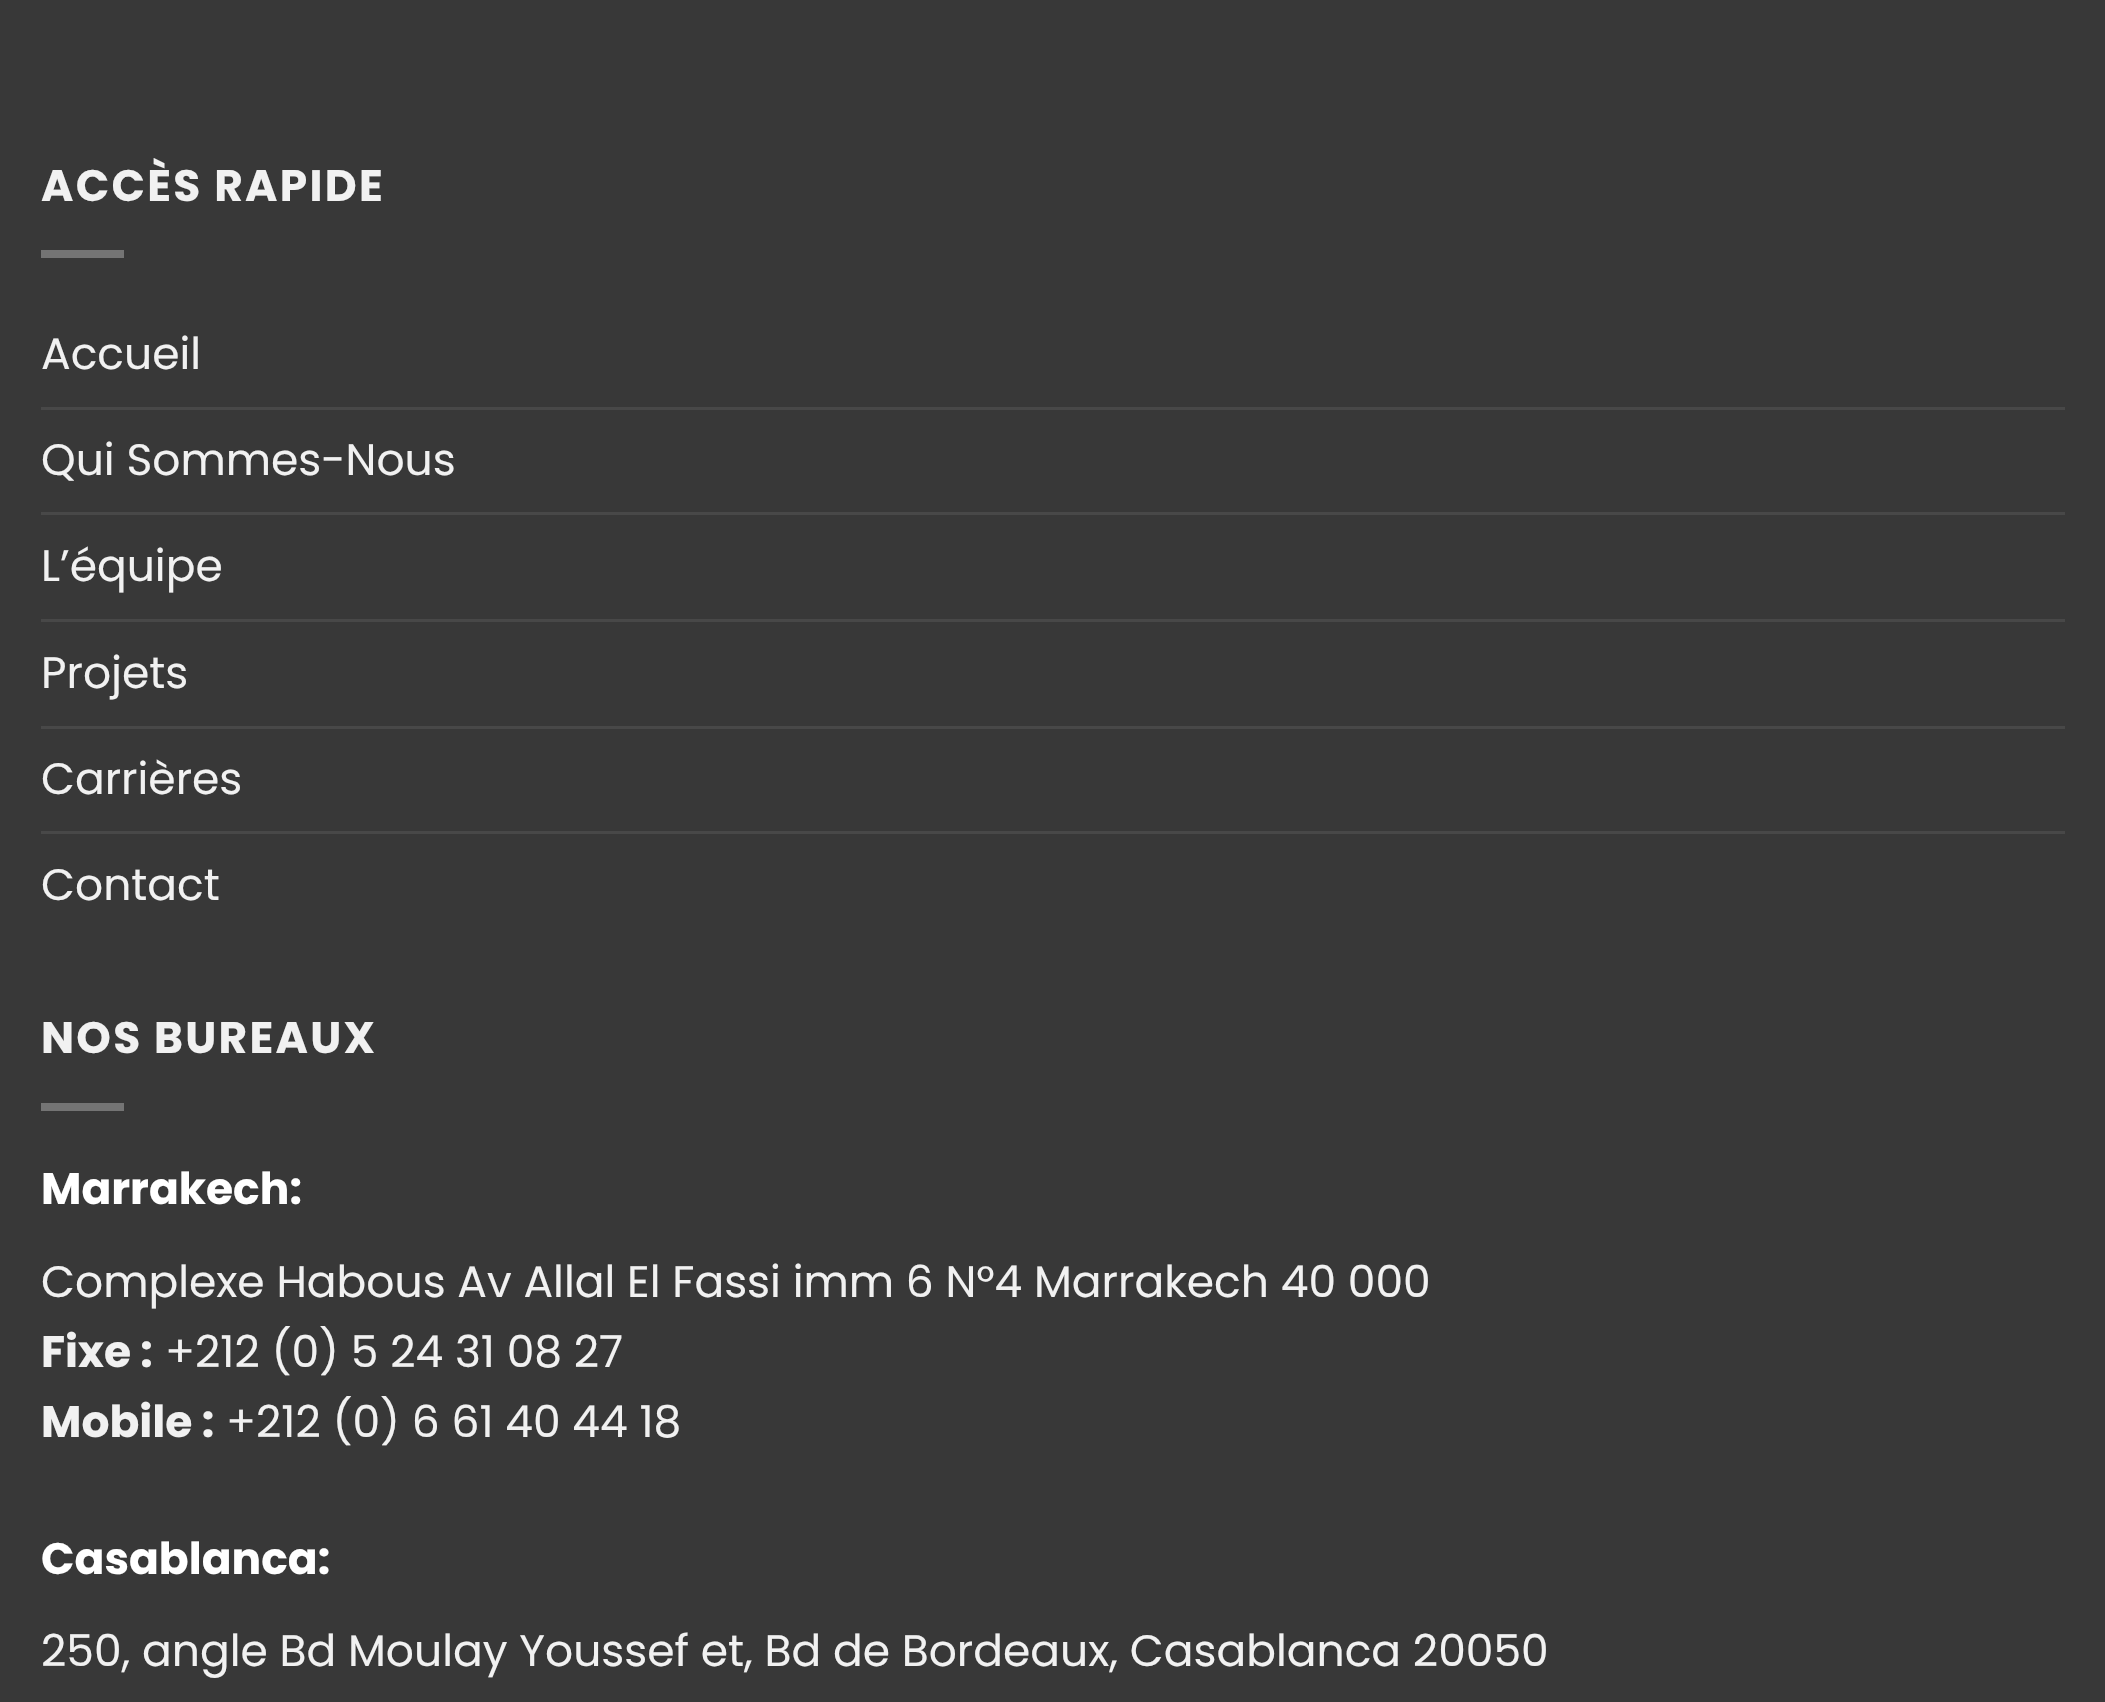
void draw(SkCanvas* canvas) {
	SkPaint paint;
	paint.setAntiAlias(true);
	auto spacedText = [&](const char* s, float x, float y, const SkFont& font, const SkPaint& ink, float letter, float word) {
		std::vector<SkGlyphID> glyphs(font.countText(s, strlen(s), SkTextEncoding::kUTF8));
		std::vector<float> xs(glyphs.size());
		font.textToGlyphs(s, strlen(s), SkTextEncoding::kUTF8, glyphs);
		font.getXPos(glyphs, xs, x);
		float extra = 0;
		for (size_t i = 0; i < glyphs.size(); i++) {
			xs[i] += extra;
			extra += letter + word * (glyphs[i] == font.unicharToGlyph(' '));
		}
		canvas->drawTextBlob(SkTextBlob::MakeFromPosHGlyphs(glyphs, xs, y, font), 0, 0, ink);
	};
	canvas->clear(0xff383838);
	SkFont f1(fontMgr->matchFamilyStyle("Poppins", SkFontStyle::Bold()), 44);
	f1.setSubpixel(true);
	paint.setColor(0xfff1f1f1);
	spacedText("ACCÈS RAPIDE", 41, 201, f1, paint, 2.25, 0);
	paint.setColor(0xff747474);
	canvas->drawRect(SkRect::MakeXYWH(41, 250, 83, 8), paint);
	SkFont f2(fontMgr->matchFamilyStyle("Poppins", SkFontStyle::Normal()), 44);
	f2.setSubpixel(true);
	paint.setColor(0xfff1f1f1);
	canvas->drawString("Accueil", 41, 369, f2, paint);
	paint.setColor(0xff484848);
	canvas->drawRect(SkRect::MakeXYWH(41, 407, 2024, 3), paint);
	paint.setColor(0xfff1f1f1);
	canvas->drawString("Qui Sommes-Nous", 41, 475, f2, paint);
	paint.setColor(0xff484848);
	canvas->drawRect(SkRect::MakeXYWH(41, 512, 2024, 3), paint);
	paint.setColor(0xfff1f1f1);
	canvas->drawString("L’équipe", 41, 581, f2, paint);
	paint.setColor(0xff484848);
	canvas->drawRect(SkRect::MakeXYWH(41, 619, 2024, 3), paint);
	paint.setColor(0xfff1f1f1);
	canvas->drawString("Projets", 41, 688, f2, paint);
	paint.setColor(0xff484848);
	canvas->drawRect(SkRect::MakeXYWH(41, 726, 2024, 3), paint);
	paint.setColor(0xfff1f1f1);
	canvas->drawString("Carrières", 41, 794, f2, paint);
	paint.setColor(0xff484848);
	canvas->drawRect(SkRect::MakeXYWH(41, 831, 2024, 3), paint);
	paint.setColor(0xfff1f1f1);
	canvas->drawString("Contact", 41, 900, f2, paint);
	spacedText("NOS BUREAUX", 41, 1053, f1, paint, 2.25, 0);
	paint.setColor(0xff747474);
	canvas->drawRect(SkRect::MakeXYWH(41, 1103, 83, 8), paint);
	paint.setColor(0xffffffff);
	canvas->drawString("Marrakech:", 41, 1204, f1, paint);
	paint.setColor(0xfff1f1f1);
	canvas->drawString("Complexe Habous Av Allal El Fassi imm 6 N°4 Marrakech 40 000", 41, 1297, f2, paint);
	canvas->drawString("Fixe :", 41, 1367, f1, paint);
	canvas->drawString("+212 (0) 5 24 31 08 27", 165, 1367, f2, paint);
	canvas->drawString("Mobile :", 41, 1437, f1, paint);
	canvas->drawString("+212 (0) 6 61 40 44 18", 226, 1437, f2, paint);
	paint.setColor(0xffffffff);
	canvas->drawString("Casablanca:", 41, 1574, f1, paint);
	paint.setColor(0xfff1f1f1);
	canvas->drawString("250, angle Bd Moulay Youssef et, Bd de Bordeaux, Casablanca 20050", 41, 1666, f2, paint);
}
